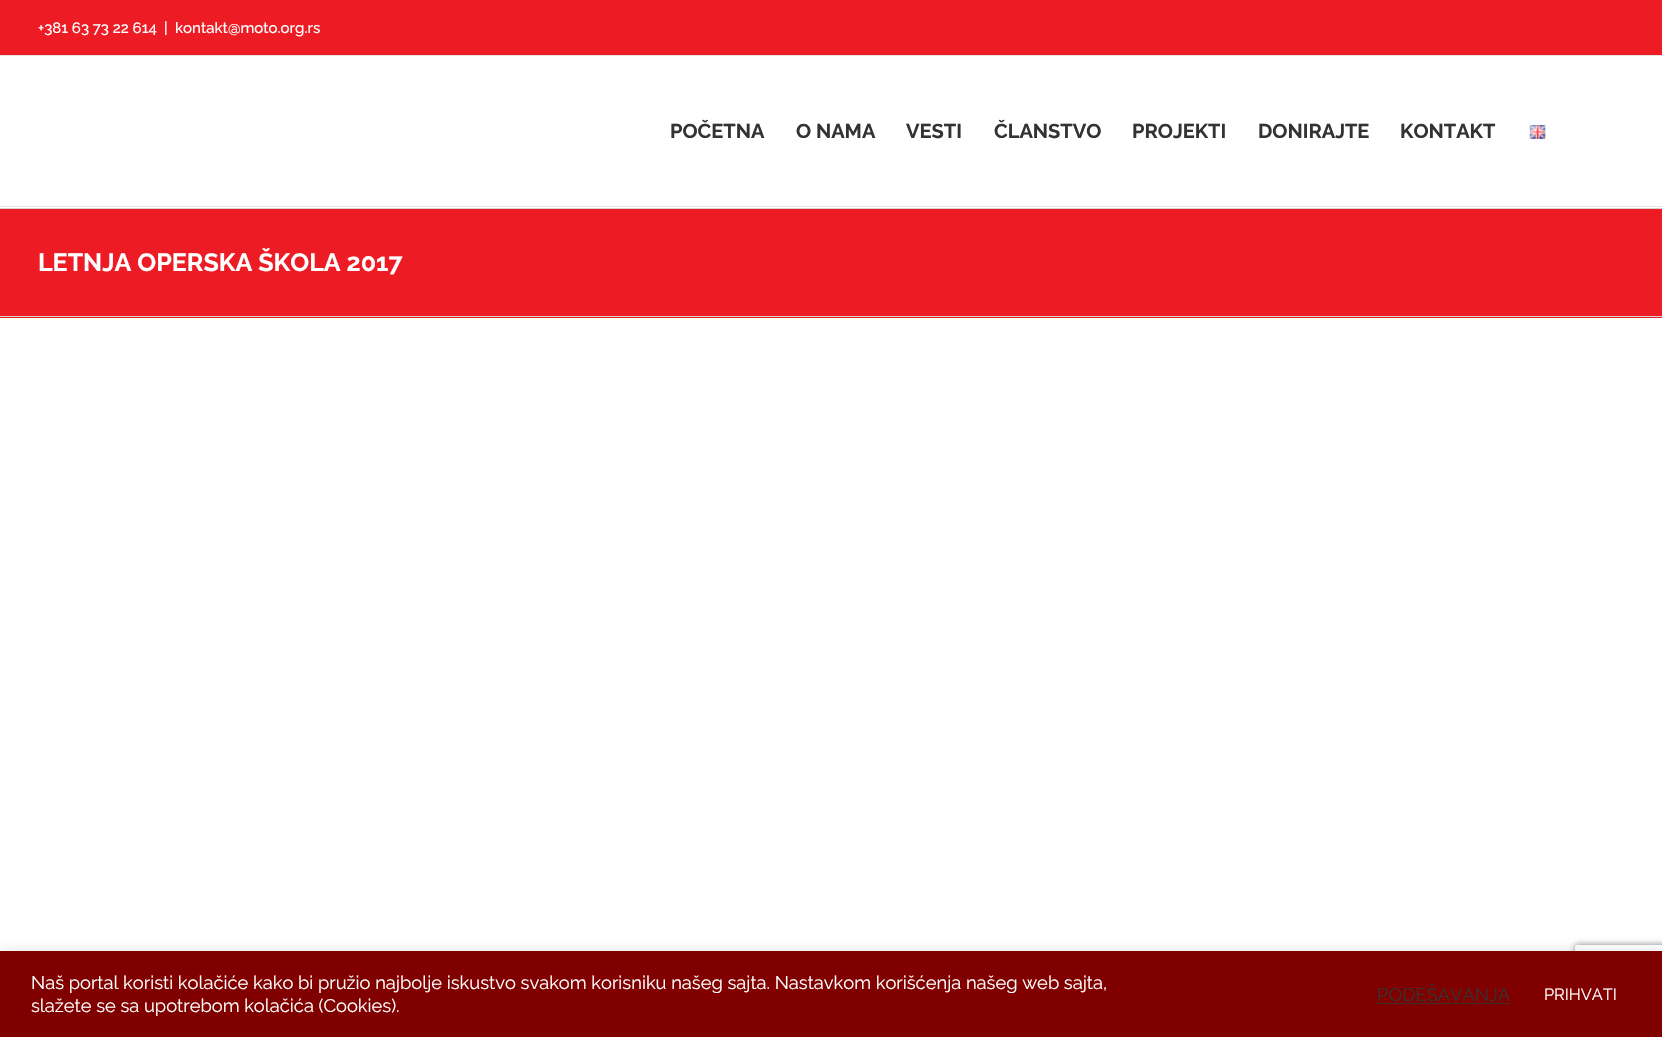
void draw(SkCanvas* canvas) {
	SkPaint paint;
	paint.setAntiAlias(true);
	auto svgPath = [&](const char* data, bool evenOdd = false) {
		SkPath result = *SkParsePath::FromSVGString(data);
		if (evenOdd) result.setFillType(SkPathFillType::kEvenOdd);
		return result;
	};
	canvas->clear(0xffffffff);
	paint.setColor(0xffed1b24);
	canvas->drawRect(SkRect::MakeXYWH(0, 0, 1662, 55), paint);
	paint.setColor(0xffe5e5e5);
	canvas->drawRect(SkRect::MakeXYWH(0, 55, 1662, 1), paint);
	SkFont f1(fontMgr->matchFamilyStyle("Raleway", SkFontStyle(500, SkFontStyle::kNormal_Width, SkFontStyle::kUpright_Slant)), 15);
	f1.setSubpixel(true);
	paint.setColor(0xffffffff);
	canvas->drawString("+381 63 73 22 614", 38, 33, f1, paint);
	canvas->drawString("|", 164, 33, f1, paint);
	canvas->drawString("kontakt@moto.org.rs", 175, 33, f1, paint);
	paint.setColor(0xffe5e5e5);
	canvas->drawRect(SkRect::MakeXYWH(0, 206, 1662, 1), paint);
	SkFont f2(fontMgr->matchFamilyStyle("Raleway", SkFontStyle::Bold()), 20);
	f2.setSubpixel(true);
	paint.setColor(0xff333333);
	canvas->drawString("POČETNA", 670, 138, f2, paint);
	canvas->drawString("O NAMA", 796, 138, f2, paint);
	canvas->drawString("VESTI", 906, 138, f2, paint);
	canvas->drawString("ČLANSTVO", 994, 138, f2, paint);
	canvas->drawString("PROJEKTI", 1132, 138, f2, paint);
	canvas->drawString("DONIRAJTE", 1258, 138, f2, paint);
	canvas->drawString("KONTAKT", 1400, 138, f2, paint);
	canvas->drawImageRect(SkImages::DeferredFromEncodedData(SkData::MakeFromFileName("img1.png")), SkRect::MakeXYWH(1529, 125, 17, 15), SkSamplingOptions());
	paint.setColor(0xffed1b24);
	canvas->drawRect(SkRect::MakeXYWH(0, 209, 1662, 109), paint);
	paint.setColor(0xffd2d3d4);
	canvas->drawRect(SkRect::MakeXYWH(0, 208, 1662, 1), paint);
	canvas->drawRect(SkRect::MakeXYWH(0, 316, 1662, 1), paint);
	SkFont f3(fontMgr->matchFamilyStyle("Raleway", SkFontStyle::Bold()), 25);
	f3.setSubpixel(true);
	paint.setColor(0xffffffff);
	canvas->drawString("LETNJA OPERSKA ŠKOLA 2017", 38, 271, f3, paint);
	canvas->save();
	canvas->clipPath(svgPath("M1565 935H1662V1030H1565ZM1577.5 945H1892.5C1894 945 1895 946 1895 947.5V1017.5C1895 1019 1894 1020 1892.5 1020H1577.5C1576 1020 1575 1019 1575 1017.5V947.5C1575 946 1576 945 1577.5 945Z", true), true);
	paint.setColor(0xff808080);
	paint.setMaskFilter(SkMaskFilter::MakeBlur(kNormal_SkBlurStyle, 3));
	canvas->drawRoundRect(SkRect::MakeXYWH(1575, 945, 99, 75), 2.5, 2.5, paint);
	paint.setMaskFilter(nullptr);
	canvas->restore();
	paint.setColor(0x4dacabab);
	paint.setMaskFilter(SkMaskFilter::MakeBlur(kNormal_SkBlurStyle, 6));
	canvas->drawRect(SkRect::MakeXYWH(0, 950, 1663, 86), paint);
	paint.setMaskFilter(nullptr);
	paint.setColor(0xff800000);
	canvas->drawRect(SkRect::MakeXYWH(0, 951, 1662, 86), paint);
	SkFont f4(fontMgr->matchFamilyStyle("Raleway", SkFontStyle::Normal()), 18.33);
	f4.setSubpixel(true);
	paint.setColor(0xffffffff);
	canvas->drawString("Naš portal koristi kolačiće kako bi pružio najbolje iskustvo svakom korisniku našeg sajta. Nastavkom korišćenja našeg web sajta,", 31, 989, f4, paint);
	canvas->drawString("slažete se sa upotrebom kolačića (Cookies).", 31, 1012, f4, paint);
	paint.setColor(0xff333333);
	canvas->drawString("PODEŠAVANJA", 1377, 1001, f4, paint);
	canvas->drawRect(SkRect::MakeXYWH(1376, 1003, 134, 1), paint);
	SkFont f5(fontMgr->matchFamilyStyle("Raleway", SkFontStyle::Normal()), 16.25);
	f5.setSubpixel(true);
	paint.setColor(0xffffffff);
	canvas->drawString("PRIHVATI", 1544, 1000, f5, paint);
}
